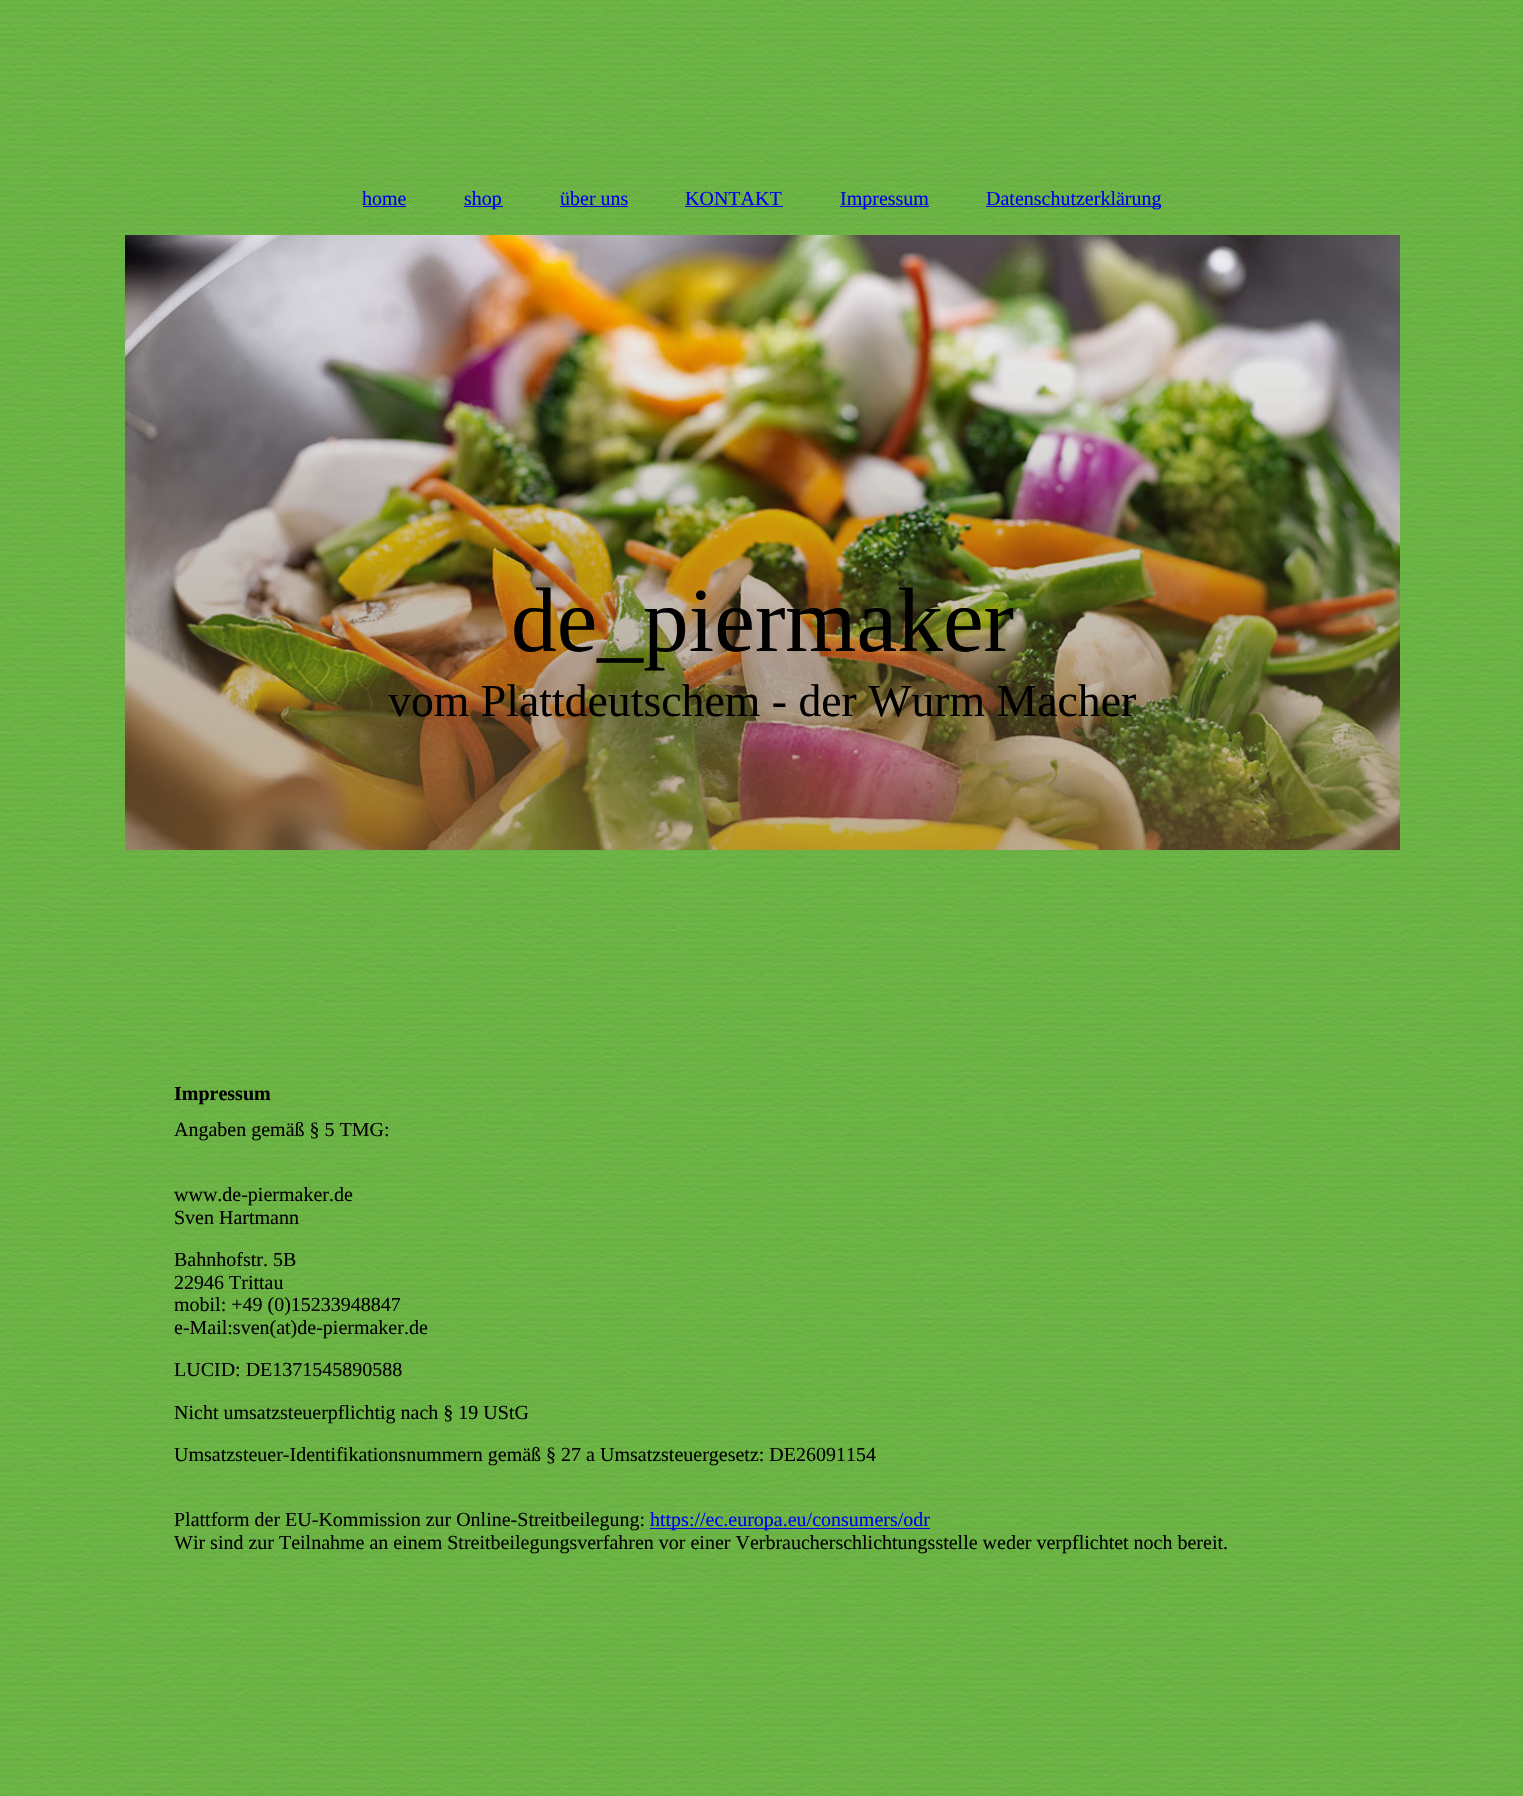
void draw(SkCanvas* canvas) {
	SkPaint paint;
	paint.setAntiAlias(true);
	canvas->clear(0xffffffff);
	canvas->drawImageRect(SkImages::DeferredFromEncodedData(SkData::MakeFromFileName("img1.png")), SkRect::MakeXYWH(0, 0, 1523, 1796), SkSamplingOptions());
	SkFont f1(fontMgr->matchFamilyStyle("Liberation Serif", SkFontStyle::Normal()), 20);
	f1.setSubpixel(true);
	paint.setColor(0xff0000ee);
	canvas->drawString("home", 362, 205, f1, paint);
	canvas->drawRect(SkRect::MakeXYWH(363, 206, 43, 1), paint);
	canvas->drawRect(SkRect::MakeXYWH(464, 206, 39, 1), paint);
	canvas->drawString("shop", 464, 205, f1, paint);
	canvas->drawString("über uns", 560, 205, f1, paint);
	canvas->drawRect(SkRect::MakeXYWH(560, 206, 68, 1), paint);
	canvas->drawString("KONTAKT", 685, 205, f1, paint);
	canvas->drawRect(SkRect::MakeXYWH(685, 206, 98, 1), paint);
	canvas->drawRect(SkRect::MakeXYWH(840, 206, 89, 1), paint);
	canvas->drawString("Impressum", 840, 205, f1, paint);
	canvas->drawRect(SkRect::MakeXYWH(986, 206, 175, 1), paint);
	canvas->drawString("Datenschutzerklärung", 986, 205, f1, paint);
	canvas->drawImageRect(SkImages::DeferredFromEncodedData(SkData::MakeFromFileName("img2.png")), SkRect::MakeXYWH(125, 235, 1275, 615), SkSamplingOptions());
	SkFont f2(fontMgr->matchFamilyStyle("Liberation Serif", SkFontStyle::Normal()), 91.5);
	f2.setSubpixel(true);
	paint.setColor(0xff000000);
	canvas->drawString("de_piermaker", 511, 651, f2, paint);
	SkFont f3(fontMgr->matchFamilyStyle("Liberation Serif", SkFontStyle::Normal()), 45.75);
	f3.setSubpixel(true);
	canvas->drawString("vom Plattdeutschem - der Wurm Macher", 388, 716, f3, paint);
	SkFont f4(fontMgr->matchFamilyStyle("Liberation Serif", SkFontStyle::Bold()), 20);
	f4.setSubpixel(true);
	canvas->drawString("Impressum", 174, 1100, f4, paint);
	canvas->drawString("Angaben gemäß § 5 TMG:", 174, 1136, f1, paint);
	canvas->drawString("www.de-piermaker.de", 174, 1201, f1, paint);
	canvas->drawString("Sven Hartmann", 174, 1224, f1, paint);
	canvas->drawString("Bahnhofstr. 5B", 174, 1266, f1, paint);
	canvas->drawString("22946 Trittau", 174, 1289, f1, paint);
	canvas->drawString("mobil: +49 (0)15233948847", 174, 1311, f1, paint);
	canvas->drawString("e-Mail:sven(at)de-piermaker.de", 174, 1334, f1, paint);
	canvas->drawString("LUCID: DE1371545890588", 174, 1376, f1, paint);
	canvas->drawString("Nicht umsatzsteuerpflichtig nach § 19 UStG", 174, 1419, f1, paint);
	canvas->drawString("Umsatzsteuer-Identifikationsnummern gemäß § 27 a Umsatzsteuergesetz: DE26091154", 174, 1461, f1, paint);
	canvas->drawString("Plattform der EU-Kommission zur Online-Streitbeilegung:", 174, 1526, f1, paint);
	paint.setColor(0xff0000ee);
	canvas->drawRect(SkRect::MakeXYWH(650, 1528, 280, 1), paint);
	canvas->drawString("https://ec.europa.eu/consumers/odr", 650, 1526, f1, paint);
	paint.setColor(0xff000000);
	canvas->drawString("Wir sind zur Teilnahme an einem Streitbeilegungsverfahren vor einer Verbraucherschlichtungsstelle weder verpflichtet noch bereit.", 174, 1549, f1, paint);
}
